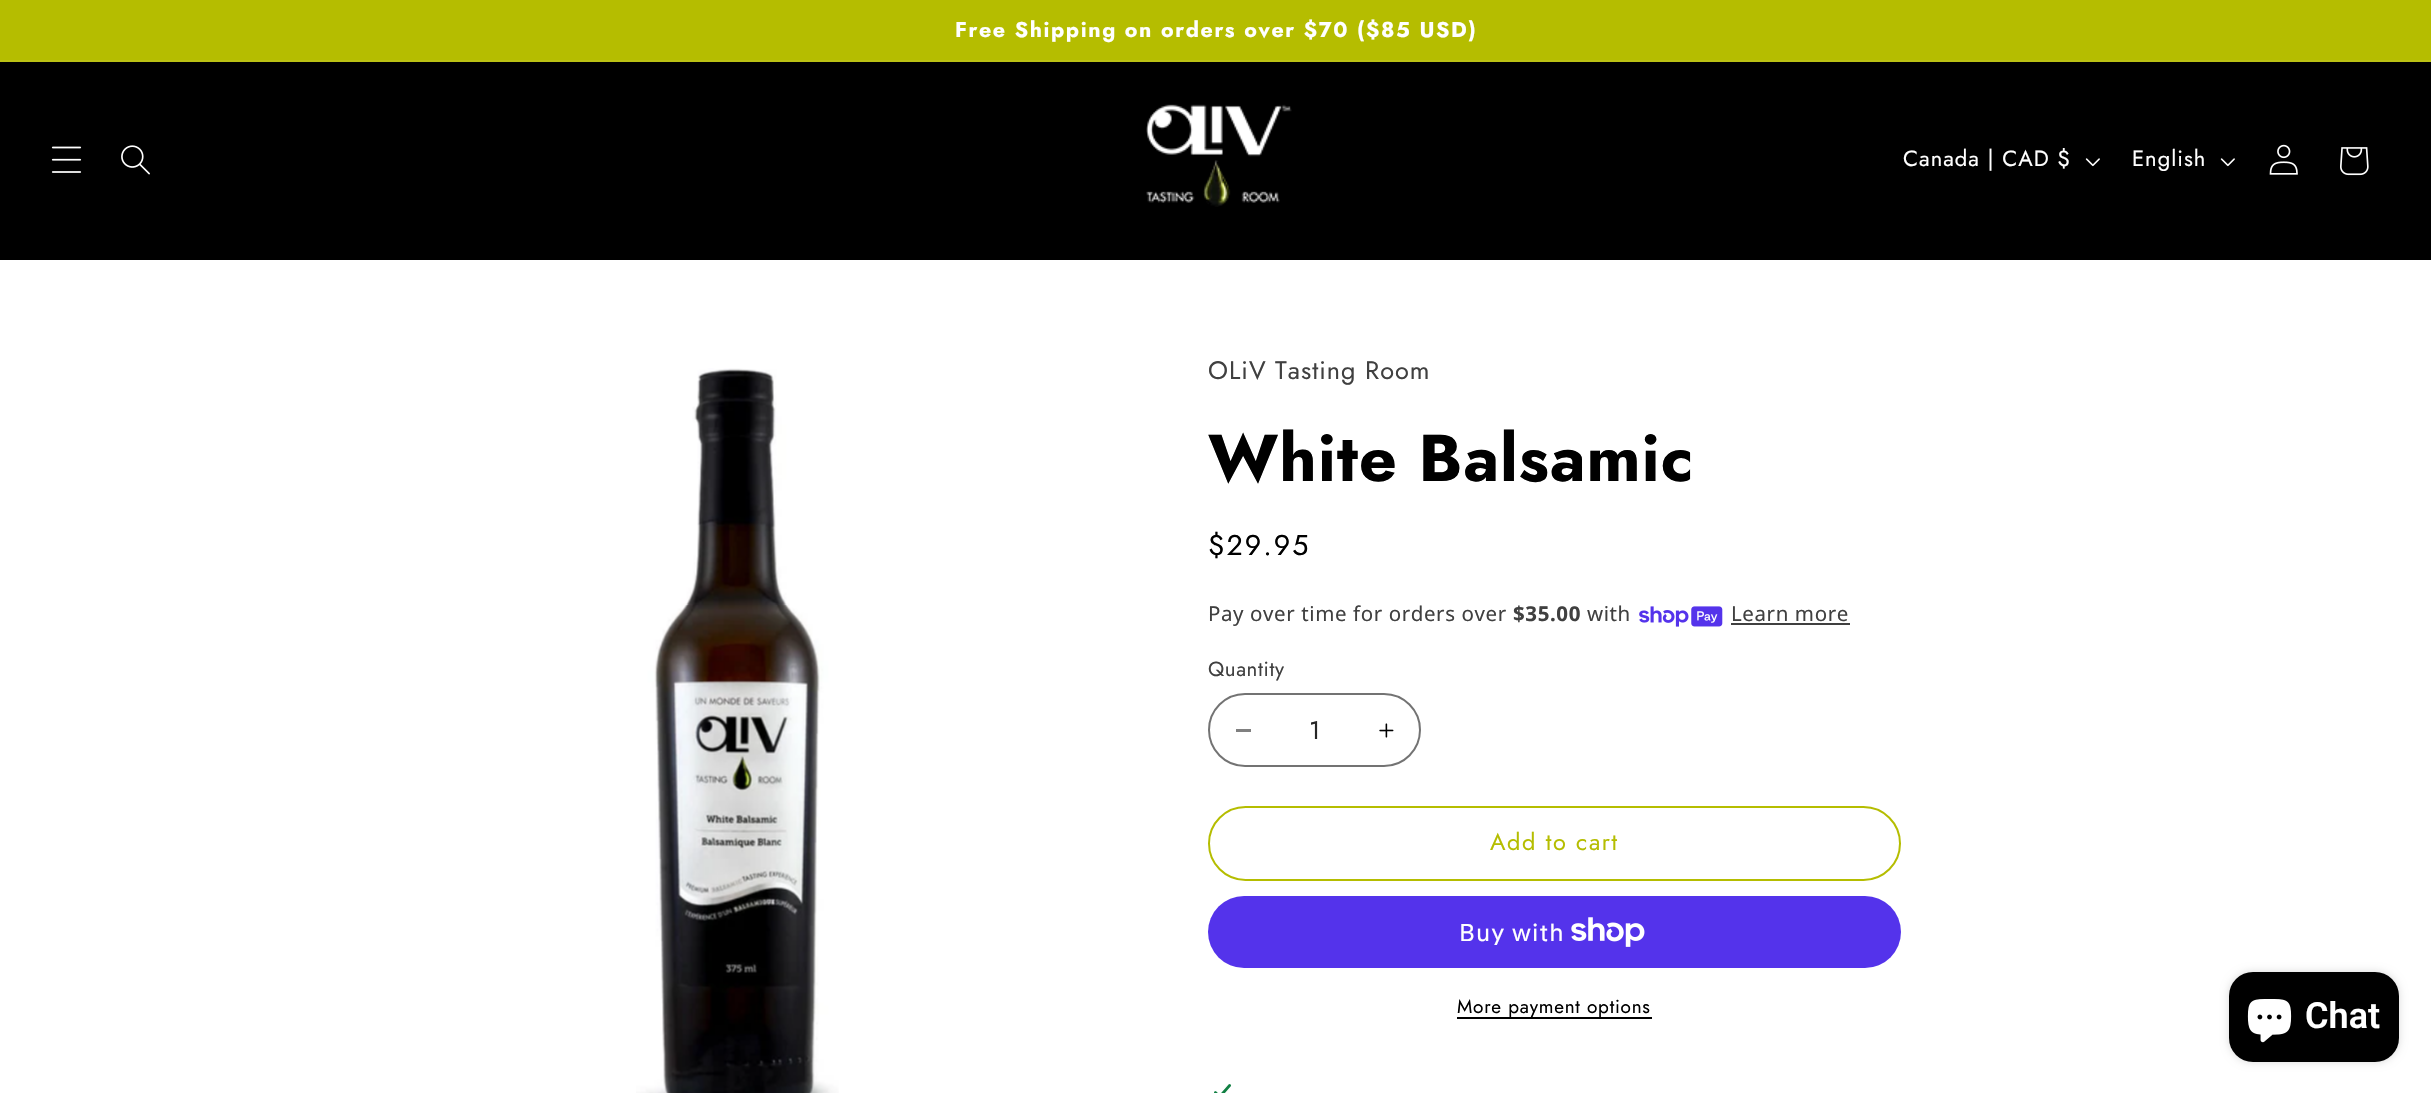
void draw(SkCanvas* canvas) {
	SkPaint paint;
	paint.setAntiAlias(true);
	auto spacedText = [&](const char* s, float x, float y, const SkFont& font, const SkPaint& ink, float letter, float word) {
		std::vector<SkGlyphID> glyphs(font.countText(s, strlen(s), SkTextEncoding::kUTF8));
		std::vector<float> xs(glyphs.size());
		font.textToGlyphs(s, strlen(s), SkTextEncoding::kUTF8, glyphs);
		font.getXPos(glyphs, xs, x);
		float extra = 0;
		for (size_t i = 0; i < glyphs.size(); i++) {
			xs[i] += extra;
			extra += letter + word * (glyphs[i] == font.unicharToGlyph(' '));
		}
		canvas->drawTextBlob(SkTextBlob::MakeFromPosHGlyphs(glyphs, xs, y, font), 0, 0, ink);
	};
	canvas->clear(0xffffffff);
	paint.setColor(0xffb5bd00);
	canvas->drawRect(SkRect::MakeXYWH(0, 0, 2431, 60), paint);
	paint.setColor(0xffbbc214);
	canvas->drawRect(SkRect::MakeXYWH(0, 60, 2431, 2), paint);
	SkFont f1(fontMgr->matchFamilyStyle("Jost", SkFontStyle::Bold()), 21.45);
	f1.setSubpixel(true);
	paint.setColor(0xffffffff);
	spacedText("Free Shipping on orders over $70 ($85 USD)", 955, 37, f1, paint, 1.6, 0);
	paint.setColor(0xff000000);
	canvas->drawRect(SkRect::MakeXYWH(0, 62, 2431, 198), paint);
	canvas->drawImageRect(SkImages::DeferredFromEncodedData(SkData::MakeFromFileName("img1.png")), SkRect::MakeXYWH(51, 146, 31, 27), SkSamplingOptions());
	canvas->drawImageRect(SkImages::DeferredFromEncodedData(SkData::MakeFromFileName("img2.png")), SkRect::MakeXYWH(121, 145, 29, 30), SkSamplingOptions());
	canvas->drawImageRect(SkImages::DeferredFromEncodedData(SkData::MakeFromFileName("img3.png")), SkRect::MakeXYWH(1146, 104, 146, 103), SkSamplingOptions());
	SkFont f2(fontMgr->matchFamilyStyle("Jost", SkFontStyle::Normal()), 22);
	f2.setSubpixel(true);
	paint.setColor(0xffffffff);
	spacedText("Canada | CAD $", 1903, 166, f2, paint, 1, 0);
	canvas->drawImageRect(SkImages::DeferredFromEncodedData(SkData::MakeFromFileName("img4.png")), SkRect::MakeXYWH(2085, 158, 15, 9), SkSamplingOptions());
	spacedText("English", 2132, 166, f2, paint, 1, 0);
	canvas->drawImageRect(SkImages::DeferredFromEncodedData(SkData::MakeFromFileName("img4.png")), SkRect::MakeXYWH(2220, 158, 15, 9), SkSamplingOptions());
	canvas->drawImageRect(SkImages::DeferredFromEncodedData(SkData::MakeFromFileName("img5.png")), SkRect::MakeXYWH(2269, 144, 29, 31), SkSamplingOptions());
	canvas->drawImageRect(SkImages::DeferredFromEncodedData(SkData::MakeFromFileName("img6.png")), SkRect::MakeXYWH(2340, 147, 29, 29), SkSamplingOptions());
	canvas->drawImageRect(SkImages::DeferredFromEncodedData(SkData::MakeFromFileName("img7.png")), SkRect::MakeXYWH(636, 368, 203, 725), SkSamplingOptions());
	SkFont f3(fontMgr->matchFamilyStyle("Jost", SkFontStyle::Normal()), 25.25);
	f3.setSubpixel(true);
	paint.setColor(0xff404040);
	spacedText("OLiV Tasting Room", 1208, 379, f3, paint, 1, 0);
	SkFont f4(fontMgr->matchFamilyStyle("Jost", SkFontStyle::Bold()), 66);
	f4.setSubpixel(true);
	paint.setColor(0xff000000);
	spacedText("White Balsamic", 1208, 481, f4, paint, 1, 0);
	SkFont f5(fontMgr->matchFamilyStyle("Jost", SkFontStyle::Normal()), 28.5);
	f5.setSubpixel(true);
	spacedText("$29.95", 1208, 555, f5, paint, 2, 0);
	SkFont f6(fontMgr->matchFamilyStyle("Noto Sans", SkFontStyle::Normal()), 20.5);
	f6.setSubpixel(true);
	paint.setColor(0xff404040);
	spacedText("Pay over time for orders over", 1208, 621, f6, paint, 0.6, 0);
	SkFont f7(fontMgr->matchFamilyStyle("Noto Sans", SkFontStyle::Bold()), 20.5);
	f7.setSubpixel(true);
	spacedText("$35.00", 1513, 621, f7, paint, 0.6, 0);
	spacedText("with", 1587, 621, f6, paint, 0.6, 0);
	canvas->drawImageRect(SkImages::DeferredFromEncodedData(SkData::MakeFromFileName("img8.png")), SkRect::MakeXYWH(1639, 606, 84, 21), SkSamplingOptions());
	spacedText("Learn more", 1731, 621, f6, paint, 0.6, 0);
	canvas->drawRect(SkRect::MakeXYWH(1731, 623, 119, 2), paint);
	SkFont f8(fontMgr->matchFamilyStyle("Jost", SkFontStyle::Normal()), 20.5);
	f8.setSubpixel(true);
	spacedText("Quantity", 1208, 676, f8, paint, 0.6, 0);
	paint.setColor(0xff808080);
	canvas->drawRect(SkRect::MakeXYWH(1236, 729, 15, 3), paint);
	canvas->drawImageRect(SkImages::DeferredFromEncodedData(SkData::MakeFromFileName("img9.png")), SkRect::MakeXYWH(1379, 723, 15, 15), SkSamplingOptions());
	paint.setStroke(true);
	paint.setStrokeWidth(2);
	paint.setColor(0xff737373);
	canvas->drawRoundRect(SkRect::MakeXYWH(1209, 694, 211, 72), 36, 36, paint);
	paint.setStroke(false);
	paint.setColor(0xff262626);
	canvas->drawString("1", 1309, 739, f3, paint);
	paint.setStroke(true);
	paint.setColor(0xffb5bd00);
	canvas->drawRoundRect(SkRect::MakeXYWH(1209, 807, 691, 73), 36.5, 36.5, paint);
	SkFont f9(fontMgr->matchFamilyStyle("Jost", SkFontStyle::Normal()), 23.5);
	f9.setSubpixel(true);
	paint.setStroke(false);
	spacedText("Add to cart", 1490, 850, f9, paint, 1.6, 0);
	paint.setColor(0xff5433eb);
	canvas->drawRoundRect(SkRect::MakeXYWH(1208, 896, 693, 72), 36, 36, paint);
	SkFont f10(fontMgr->matchFamilyStyle("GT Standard", SkFontStyle::Normal()), 24);
	f10.setSubpixel(true);
	paint.setColor(0xffffffff);
	spacedText("Buy with", 1459, 941, f10, paint, 1, 0);
	canvas->drawImageRect(SkImages::DeferredFromEncodedData(SkData::MakeFromFileName("img10.png")), SkRect::MakeXYWH(1571, 917, 74, 30), SkSamplingOptions());
	paint.setColor(0xff000000);
	canvas->drawRect(SkRect::MakeXYWH(1457, 1017, 195, 2), paint);
	SkFont f11(fontMgr->matchFamilyStyle("Jost", SkFontStyle::Normal()), 18.9);
	f11.setSubpixel(true);
	spacedText("More payment options", 1457, 1013, f11, paint, 0.75, 0);
	canvas->drawImageRect(SkImages::DeferredFromEncodedData(SkData::MakeFromFileName("img11.png")), SkRect::MakeXYWH(1214, 1084, 17, 9), SkSamplingOptions());
	paint.setColor(0x26000000);
	paint.setMaskFilter(SkMaskFilter::MakeBlur(kNormal_SkBlurStyle, 4));
	canvas->drawRoundRect(SkRect::MakeXYWH(2229, 972, 170, 90), 24, 24, paint);
	paint.setMaskFilter(nullptr);
	paint.setColor(0xff000000);
	canvas->drawRoundRect(SkRect::MakeXYWH(2229, 972, 170, 90), 24, 24, paint);
	canvas->drawImageRect(SkImages::DeferredFromEncodedData(SkData::MakeFromFileName("img12.png")), SkRect::MakeXYWH(2247, 999, 45, 44), SkSamplingOptions());
	SkFont f12(fontMgr->matchFamilyStyle("Roboto", SkFontStyle(600, SkFontStyle::kNormal_Width, SkFontStyle::kUpright_Slant)), 36);
	f12.setSubpixel(true);
	paint.setColor(0xffffffff);
	canvas->drawString("Chat", 2305, 1028, f12, paint);
}
